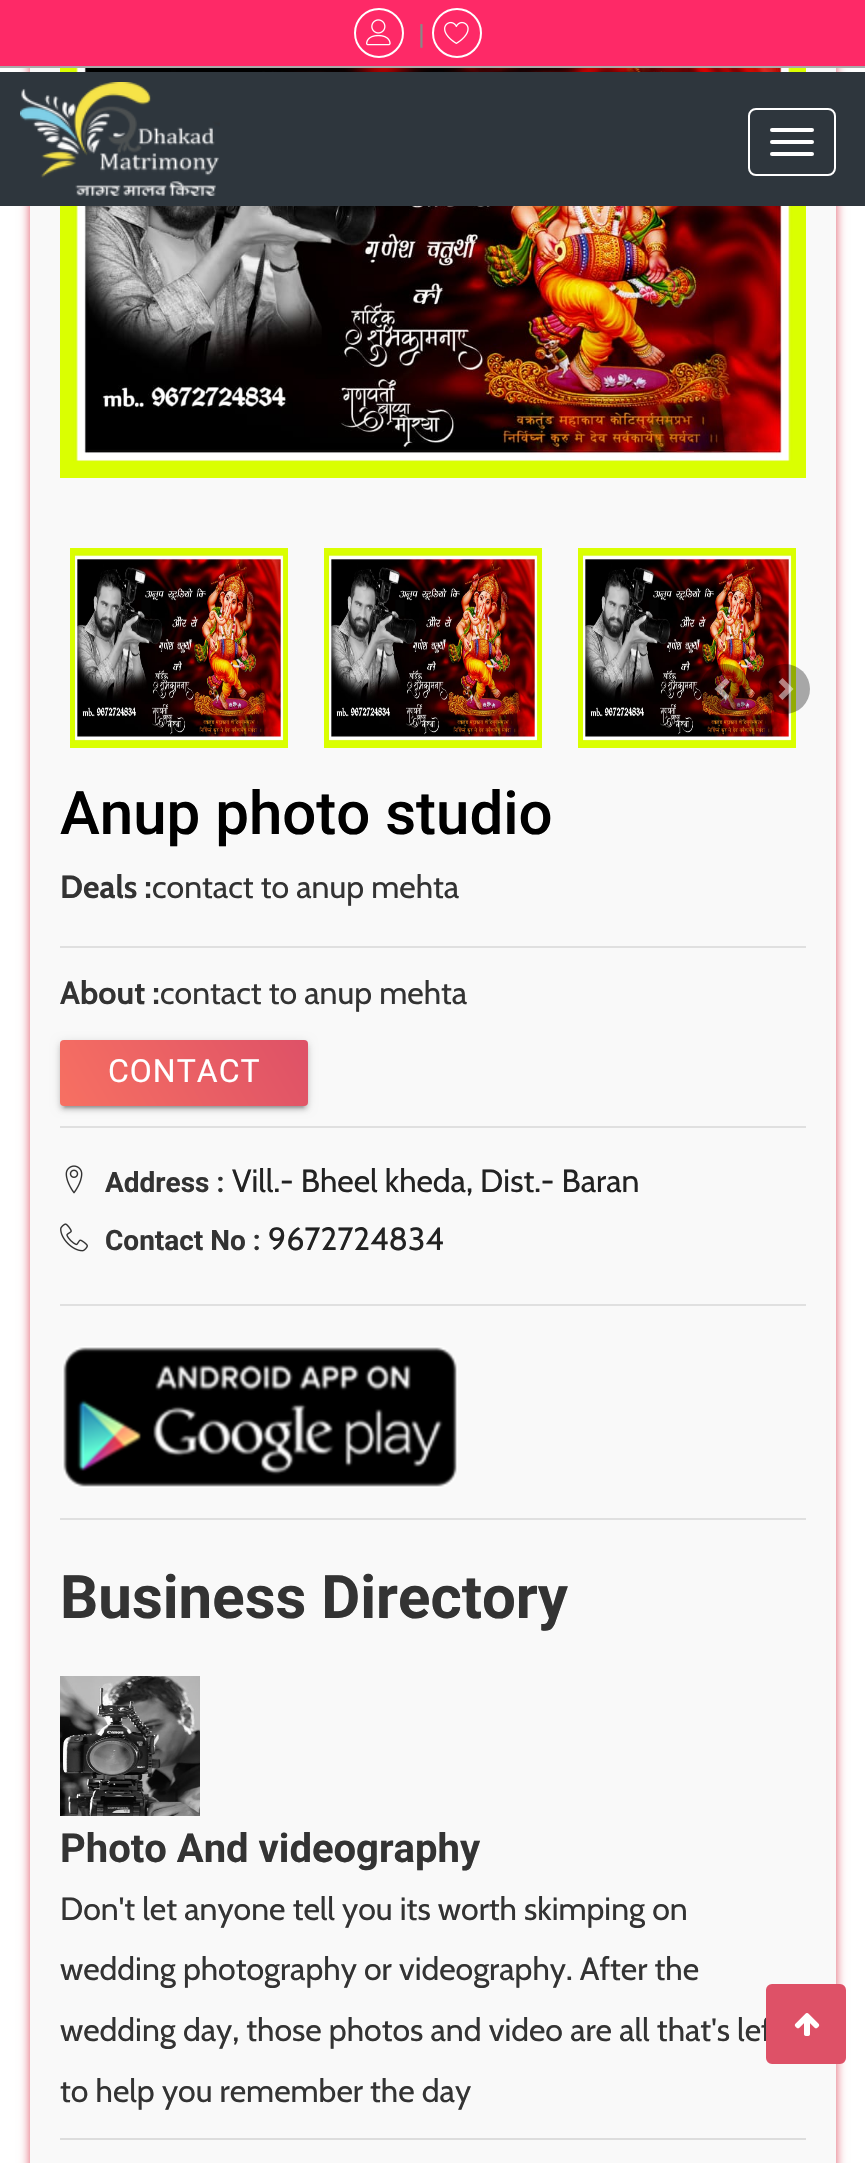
void draw(SkCanvas* canvas) {
	SkPaint paint;
	paint.setAntiAlias(true);
	auto spacedText = [&](const char* s, float x, float y, const SkFont& font, const SkPaint& ink, float letter, float word) {
		std::vector<SkGlyphID> glyphs(font.countText(s, strlen(s), SkTextEncoding::kUTF8));
		std::vector<float> xs(glyphs.size());
		font.textToGlyphs(s, strlen(s), SkTextEncoding::kUTF8, glyphs);
		font.getXPos(glyphs, xs, x);
		float extra = 0;
		for (size_t i = 0; i < glyphs.size(); i++) {
			xs[i] += extra;
			extra += letter + word * (glyphs[i] == font.unicharToGlyph(' '));
		}
		canvas->drawTextBlob(SkTextBlob::MakeFromPosHGlyphs(glyphs, xs, y, font), 0, 0, ink);
	};
	auto svgPath = [&](const char* data, bool evenOdd = false) {
		SkPath result = *SkParsePath::FromSVGString(data);
		if (evenOdd) result.setFillType(SkPathFillType::kEvenOdd);
		return result;
	};
	canvas->clear(0xffffffff);
	paint.setColor(0xffe15566);
	paint.setMaskFilter(SkMaskFilter::MakeBlur(kNormal_SkBlurStyle, 5));
	canvas->drawRect(SkRect::MakeXYWH(30, -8, 806, 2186), paint);
	paint.setMaskFilter(nullptr);
	paint.setColor(0xfffe2967);
	canvas->drawRect(SkRect::MakeXYWH(0, 0, 865, 66), paint);
	paint.setColor(0xffaaaaaa);
	canvas->drawRect(SkRect::MakeXYWH(0, 66, 865, 2), paint);
	paint.setStroke(true);
	paint.setStrokeWidth(2);
	paint.setColor(0xffffffff);
	canvas->drawCircle(379, 33, 24, paint);
	canvas->drawImageRect(SkImages::DeferredFromEncodedData(SkData::MakeFromFileName("img1.png")), SkRect::MakeXYWH(366, 19, 25, 27), SkSamplingOptions());
	SkFont f1(fontMgr->matchFamilyStyle("Roboto", SkFontStyle::Normal()), 28);
	f1.setSubpixel(true);
	paint.setStroke(false);
	paint.setColor(0xff888888);
	canvas->drawString("|", 418, 44, f1, paint);
	paint.setStroke(true);
	paint.setColor(0xffffffff);
	canvas->drawCircle(457, 33, 24, paint);
	canvas->drawImageRect(SkImages::DeferredFromEncodedData(SkData::MakeFromFileName("img2.png")), SkRect::MakeXYWH(444, 21, 25, 23), SkSamplingOptions());
	paint.setStroke(false);
	paint.setColor(0xfff9f9f9);
	canvas->drawRect(SkRect::MakeXYWH(30, 68, 806, 2095), paint);
	canvas->drawImageRect(SkImages::DeferredFromEncodedData(SkData::MakeFromFileName("img4.png")), SkRect::MakeXYWH(60, 68, 746, 410), SkSamplingOptions());
	paint.setColor(0xff2e363d);
	canvas->drawRect(SkRect::MakeXYWH(0, 72, 865, 134), paint);
	canvas->drawImageRect(SkImages::DeferredFromEncodedData(SkData::MakeFromFileName("img3.png")), SkRect::MakeXYWH(20, 82, 200, 114), SkSamplingOptions());
	paint.setStroke(true);
	paint.setColor(0xffffffff);
	canvas->drawRoundRect(SkRect::MakeXYWH(749, 109, 86, 66), 7, 7, paint);
	paint.setStroke(false);
	canvas->drawRoundRect(SkRect::MakeXYWH(770, 128, 44, 4), 2, 2, paint);
	canvas->drawRoundRect(SkRect::MakeXYWH(770, 140, 44, 4), 2, 2, paint);
	canvas->drawRoundRect(SkRect::MakeXYWH(770, 152, 44, 4), 2, 2, paint);
	canvas->drawImageRect(SkImages::DeferredFromEncodedData(SkData::MakeFromFileName("img5.png")), SkRect::MakeXYWH(70, 548, 218, 200), SkSamplingOptions());
	canvas->drawImageRect(SkImages::DeferredFromEncodedData(SkData::MakeFromFileName("img6.png")), SkRect::MakeXYWH(324, 548, 218, 200), SkSamplingOptions());
	canvas->drawImageRect(SkImages::DeferredFromEncodedData(SkData::MakeFromFileName("img5.png")), SkRect::MakeXYWH(578, 548, 218, 200), SkSamplingOptions());
	paint.setColor(0x54000000);
	canvas->drawCircle(725, 689, 25, paint);
	paint.setColor(0x80ffffff);
	canvas->drawPath(svgPath("M729.5 682L722.5 689L729.5 696L726 700L714.5 689L726 678Z"), paint);
	paint.setColor(0x54000000);
	canvas->drawCircle(785, 689, 25, paint);
	paint.setColor(0x80ffffff);
	canvas->drawPath(svgPath("M793.5 689L782.5 700L778.5 696L785.5 689L778.5 682L782.5 678Z"), paint);
	SkFont f2(fontMgr->matchFamilyStyle("Roboto", SkFontStyle(500, SkFontStyle::kNormal_Width, SkFontStyle::kUpright_Slant)), 60);
	f2.setSubpixel(true);
	paint.setColor(0xff000000);
	canvas->drawString("Anup photo studio", 60, 834, f2, paint);
	SkFont f3(fontMgr->matchFamilyStyle("Cabin", SkFontStyle::Bold()), 32);
	f3.setSubpixel(true);
	paint.setColor(0xff333333);
	canvas->drawString("Deals :", 60, 898, f3, paint);
	SkFont f4(fontMgr->matchFamilyStyle("Cabin", SkFontStyle::Normal()), 32);
	f4.setSubpixel(true);
	canvas->drawString("contact to anup mehta", 152, 898, f4, paint);
	paint.setColor(0xffe0e0e0);
	canvas->drawRect(SkRect::MakeXYWH(60, 946, 746, 2), paint);
	paint.setColor(0xff333333);
	canvas->drawString("About :", 60, 1004, f3, paint);
	canvas->drawString("contact to anup mehta", 160, 1004, f4, paint);
	paint.setColor(0x1f000000);
	paint.setMaskFilter(SkMaskFilter::MakeBlur(kNormal_SkBlurStyle, 5));
	canvas->drawRoundRect(SkRect::MakeXYWH(60, 1042, 248, 66), 4, 4, paint);
	paint.setMaskFilter(nullptr);
	paint.setColor(0x33000000);
	paint.setMaskFilter(SkMaskFilter::MakeBlur(kNormal_SkBlurStyle, 1));
	canvas->drawRect(SkRect::MakeXYWH(64, 1050, 240, 58), paint);
	paint.setMaskFilter(nullptr);
	paint.setColor(0x24000000);
	paint.setMaskFilter(SkMaskFilter::MakeBlur(kNormal_SkBlurStyle, 2));
	canvas->drawRoundRect(SkRect::MakeXYWH(60, 1044, 248, 66), 4, 4, paint);
	paint.setMaskFilter(nullptr);
	{
		const SkColor colors[] = {0xfff77062, 0xffde5167};
		const float stops[] = {0, 1};
		const SkPoint ends[] = {{77, 1135}, {291, 1011}};
		paint.setShader(SkGradientShader::MakeLinear(ends, colors, stops, 2, SkTileMode::kClamp));
		paint.setAlpha(255);
	}
	canvas->drawRoundRect(SkRect::MakeXYWH(60, 1040, 248, 66), 4, 4, paint);
	SkFont f5(fontMgr->matchFamilyStyle("Roboto", SkFontStyle::Normal()), 32);
	f5.setSubpixel(true);
	paint.setShader(nullptr);
	paint.setColor(0xffffffff);
	spacedText("CONTACT", 108, 1082, f5, paint, 1, 0);
	paint.setColor(0xffe0e0e0);
	canvas->drawRect(SkRect::MakeXYWH(60, 1126, 746, 2), paint);
	canvas->drawRect(SkRect::MakeXYWH(60, 1304, 746, 2), paint);
	canvas->drawImageRect(SkImages::DeferredFromEncodedData(SkData::MakeFromFileName("img7.png")), SkRect::MakeXYWH(65, 1165, 18, 29), SkSamplingOptions());
	SkFont f6(fontMgr->matchFamilyStyle("Roboto", SkFontStyle::Bold()), 28);
	f6.setSubpixel(true);
	paint.setColor(0xff333333);
	canvas->drawString("Address :", 105, 1192, f6, paint);
	paint.setColor(0xff222222);
	canvas->drawString("Vill.- Bheel kheda, Dist.- Baran", 232, 1192, f4, paint);
	canvas->drawImageRect(SkImages::DeferredFromEncodedData(SkData::MakeFromFileName("img8.png")), SkRect::MakeXYWH(60, 1223, 28, 29), SkSamplingOptions());
	paint.setColor(0xff333333);
	canvas->drawString("Contact No :", 105, 1250, f6, paint);
	paint.setColor(0xff222222);
	canvas->drawString("9672724834", 268, 1250, f4, paint);
	canvas->drawImageRect(SkImages::DeferredFromEncodedData(SkData::MakeFromFileName("img9.png")), SkRect::MakeXYWH(62, 1346, 396, 142), SkSamplingOptions());
	paint.setColor(0xffe0e0e0);
	canvas->drawRect(SkRect::MakeXYWH(60, 1518, 746, 2), paint);
	SkFont f7(fontMgr->matchFamilyStyle("Roboto", SkFontStyle::Bold()), 60);
	f7.setSubpixel(true);
	paint.setColor(0xff333333);
	canvas->drawString("Business Directory", 60, 1618, f7, paint);
	canvas->drawImageRect(SkImages::DeferredFromEncodedData(SkData::MakeFromFileName("img10.png")), SkRect::MakeXYWH(60, 1676, 140, 140), SkSamplingOptions());
	SkFont f8(fontMgr->matchFamilyStyle("Roboto", SkFontStyle::Bold()), 40);
	f8.setSubpixel(true);
	canvas->drawString("Photo And videography", 60, 1862, f8, paint);
	paint.setColor(0xffdddddd);
	canvas->drawRect(SkRect::MakeXYWH(60, 2138, 746, 2), paint);
	paint.setColor(0xff333333);
	canvas->drawString("Don't let anyone tell you its worth skimping on", 60, 1920, f4, paint);
	canvas->drawString("wedding photography or videography. After the", 60, 1980, f4, paint);
	canvas->drawString("wedding day, those photos and video are all that's lef", 60, 2041, f4, paint);
	canvas->drawString("to help you remember the day", 60, 2102, f4, paint);
	paint.setColor(0xffde5167);
	canvas->drawRoundRect(SkRect::MakeXYWH(767, 1985, 78, 78), 5, 5, paint);
	paint.setStroke(true);
	canvas->drawRoundRect(SkRect::MakeXYWH(767, 1985, 78, 78), 5, 5, paint);
	canvas->drawImageRect(SkImages::DeferredFromEncodedData(SkData::MakeFromFileName("img11.png")), SkRect::MakeXYWH(794, 2013, 26, 23), SkSamplingOptions());
}
